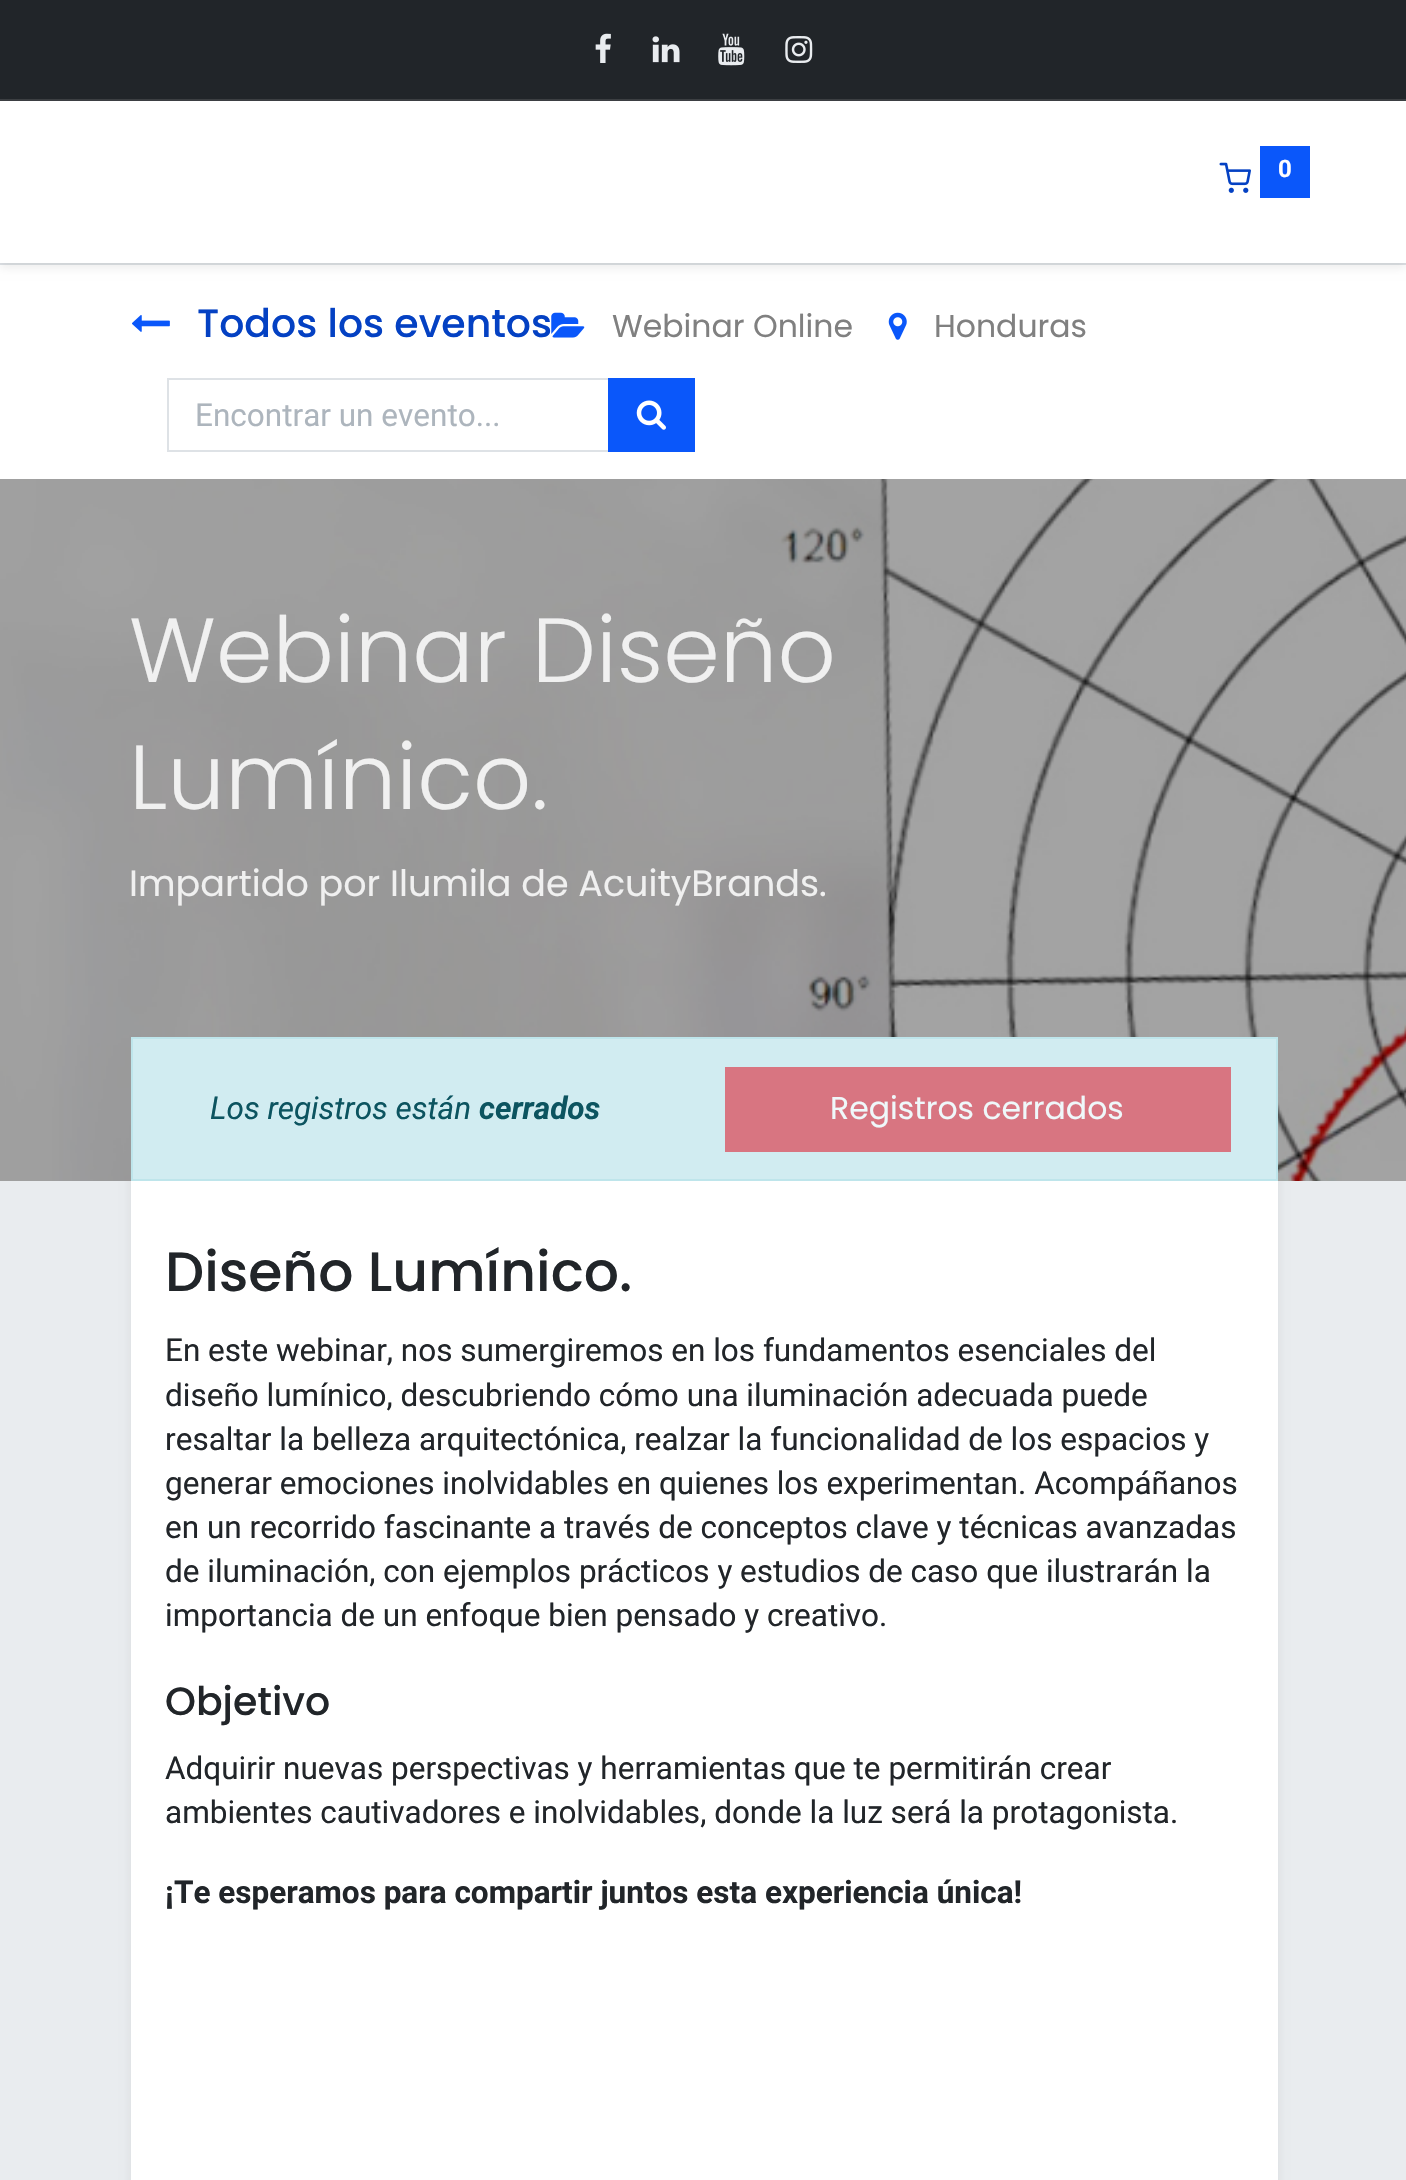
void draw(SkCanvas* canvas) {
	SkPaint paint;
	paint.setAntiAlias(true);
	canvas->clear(0xffffffff);
	paint.setColor(0xff212529);
	canvas->drawRect(SkRect::MakeXYWH(0, 0, 1406, 99), paint);
	paint.setColor(0xff3c3f43);
	canvas->drawRect(SkRect::MakeXYWH(0, 99, 1406, 2), paint);
	canvas->drawImageRect(SkImages::DeferredFromEncodedData(SkData::MakeFromFileName("img1.png")), SkRect::MakeXYWH(595, 33, 16, 30), SkSamplingOptions());
	canvas->drawImageRect(SkImages::DeferredFromEncodedData(SkData::MakeFromFileName("img2.png")), SkRect::MakeXYWH(652, 36, 28, 27), SkSamplingOptions());
	canvas->drawImageRect(SkImages::DeferredFromEncodedData(SkData::MakeFromFileName("img3.png")), SkRect::MakeXYWH(718, 33, 27, 33), SkSamplingOptions());
	canvas->drawImageRect(SkImages::DeferredFromEncodedData(SkData::MakeFromFileName("img4.png")), SkRect::MakeXYWH(785, 36, 28, 27), SkSamplingOptions());
	paint.setColor(0xffdee2e6);
	canvas->drawRect(SkRect::MakeXYWH(0, 263, 1406, 2), paint);
	paint.setColor(0x12000000);
	paint.setMaskFilter(SkMaskFilter::MakeBlur(kNormal_SkBlurStyle, 4.5));
	canvas->drawRect(SkRect::MakeXYWH(0, 106, 1406, 162), paint);
	paint.setMaskFilter(nullptr);
	paint.setColor(0xffffffff);
	canvas->drawRect(SkRect::MakeXYWH(0, 101, 1406, 162), paint);
	canvas->drawImageRect(SkImages::DeferredFromEncodedData(SkData::MakeFromFileName("img5.png")), SkRect::MakeXYWH(1219, 162, 32, 31), SkSamplingOptions());
	paint.setColor(0xff0a57fa);
	canvas->drawRect(SkRect::MakeXYWH(1260, 146, 50, 52), paint);
	SkFont f1(fontMgr->matchFamilyStyle("Roboto", SkFontStyle::Bold()), 24);
	f1.setSubpixel(true);
	paint.setColor(0xffffffff);
	canvas->drawString("0", 1278, 177, f1, paint);
	canvas->drawImageRect(SkImages::DeferredFromEncodedData(SkData::MakeFromFileName("img6.png")), SkRect::MakeXYWH(132, 315, 38, 17), SkSamplingOptions());
	SkFont f2(fontMgr->matchFamilyStyle("Poppins", SkFontStyle(500, SkFontStyle::kNormal_Width, SkFontStyle::kUpright_Slant)), 39.4);
	f2.setSubpixel(true);
	paint.setColor(0xff0441c3);
	canvas->drawString("Todos los eventos", 197, 337, f2, paint);
	canvas->drawImageRect(SkImages::DeferredFromEncodedData(SkData::MakeFromFileName("img7.png")), SkRect::MakeXYWH(551, 312, 34, 26), SkSamplingOptions());
	SkFont f3(fontMgr->matchFamilyStyle("Poppins", SkFontStyle::Normal()), 31.5);
	f3.setSubpixel(true);
	paint.setColor(0xff808080);
	canvas->drawString("Webinar Online", 612, 337, f3, paint);
	canvas->drawImageRect(SkImages::DeferredFromEncodedData(SkData::MakeFromFileName("img8.png")), SkRect::MakeXYWH(888, 312, 19, 28), SkSamplingOptions());
	canvas->drawString("Honduras", 934, 337, f3, paint);
	paint.setStroke(true);
	paint.setStrokeWidth(2);
	paint.setColor(0xffdee2e6);
	canvas->drawRect(SkRect::MakeXYWH(168, 379, 441, 72), paint);
	SkFont f4(fontMgr->matchFamilyStyle("Roboto", SkFontStyle::Normal()), 31.5);
	f4.setSubpixel(true);
	paint.setStroke(false);
	paint.setColor(0xffadb5bd);
	canvas->drawString("Encontrar un evento...", 195, 426, f4, paint);
	paint.setColor(0xff0a57fa);
	canvas->drawRect(SkRect::MakeXYWH(608, 378, 87, 74), paint);
	canvas->drawImageRect(SkImages::DeferredFromEncodedData(SkData::MakeFromFileName("img9.png")), SkRect::MakeXYWH(636, 400, 30, 30), SkSamplingOptions());
	canvas->drawImageRect(SkImages::DeferredFromEncodedData(SkData::MakeFromFileName("img10.png")), SkRect::MakeXYWH(0, 479, 1406, 702), SkSamplingOptions());
	SkFont f5(fontMgr->matchFamilyStyle("Poppins", SkFontStyle(300, SkFontStyle::kNormal_Width, SkFontStyle::kUpright_Slant)), 91);
	f5.setSubpixel(true);
	paint.setColor(0xfff0f0f0);
	canvas->drawString("Webinar Diseño", 129, 682, f5, paint);
	canvas->drawString("Lumínico.", 129, 809, f5, paint);
	SkFont f6(fontMgr->matchFamilyStyle("Poppins", SkFontStyle::Normal()), 36.5);
	f6.setSubpixel(true);
	canvas->drawString("Impartido por Ilumila de AcuityBrands.", 129, 896, f6, paint);
	paint.setColor(0xffd1ecf1);
	canvas->drawRect(SkRect::MakeXYWH(132, 1038, 1145, 142), paint);
	paint.setStroke(true);
	paint.setColor(0xffbee5eb);
	canvas->drawRect(SkRect::MakeXYWH(132, 1038, 1145, 142), paint);
	SkFont f7(fontMgr->matchFamilyStyle("Roboto", SkFontStyle::Italic()), 31.5);
	f7.setSubpixel(true);
	paint.setStroke(false);
	paint.setColor(0xff0c5460);
	canvas->drawString("Los registros están", 210, 1119, f7, paint);
	SkFont f8(fontMgr->matchFamilyStyle("Roboto", SkFontStyle::BoldItalic()), 31.5);
	f8.setSubpixel(true);
	canvas->drawString("cerrados", 479, 1119, f8, paint);
	paint.setColor(0xffd87581);
	canvas->drawRect(SkRect::MakeXYWH(725, 1067, 506, 85), paint);
	paint.setColor(0xffeff8fa);
	canvas->drawString("Registros cerrados", 830, 1119, f3, paint);
	paint.setColor(0xffe9ecef);
	canvas->drawRect(SkRect::MakeXYWH(0, 1181, 1406, 999), paint);
	canvas->save();
	canvas->clipRect(SkRect::MakeXYWH(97, 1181, 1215, 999));
	paint.setColor(0x12000000);
	paint.setMaskFilter(SkMaskFilter::MakeBlur(kNormal_SkBlurStyle, 4.5));
	canvas->drawRect(SkRect::MakeXYWH(131, 1132, 1147, 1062), paint);
	paint.setMaskFilter(nullptr);
	canvas->restore();
	paint.setColor(0xffffffff);
	canvas->drawRect(SkRect::MakeXYWH(131, 1181, 1147, 999), paint);
	SkFont f9(fontMgr->matchFamilyStyle("Poppins", SkFontStyle(500, SkFontStyle::kNormal_Width, SkFontStyle::kUpright_Slant)), 55.25);
	f9.setSubpixel(true);
	paint.setColor(0xff212529);
	canvas->drawString("Diseño Lumínico.", 165, 1291, f9, paint);
	canvas->drawString("En este webinar, nos sumergiremos en los fundamentos esenciales del", 165, 1361, f4, paint);
	canvas->drawString("diseño lumínico, descubriendo cómo una iluminación adecuada puede", 165, 1406, f4, paint);
	canvas->drawString("resaltar la belleza arquitectónica, realzar la funcionalidad de los espacios y", 165, 1450, f4, paint);
	canvas->drawString("generar emociones inolvidables en quienes los experimentan. Acompáñanos", 165, 1494, f4, paint);
	canvas->drawString("en un recorrido fascinante a través de conceptos clave y técnicas avanzadas", 165, 1538, f4, paint);
	canvas->drawString("de iluminación, con ejemplos prácticos y estudios de caso que ilustrarán la", 165, 1582, f4, paint);
	canvas->drawString("importancia de un enfoque bien pensado y creativo.", 165, 1626, f4, paint);
	canvas->drawString("Objetivo", 165, 1715, f2, paint);
	canvas->drawString("Adquirir nuevas perspectivas y herramientas que te permitirán crear", 165, 1779, f4, paint);
	canvas->drawString("ambientes cautivadores e inolvidables, donde la luz será la protagonista.", 165, 1823, f4, paint);
	SkFont f10(fontMgr->matchFamilyStyle("Roboto", SkFontStyle::Bold()), 31.5);
	f10.setSubpixel(true);
	canvas->drawString("¡Te esperamos para compartir juntos esta experiencia única!", 165, 1903, f10, paint);
}
